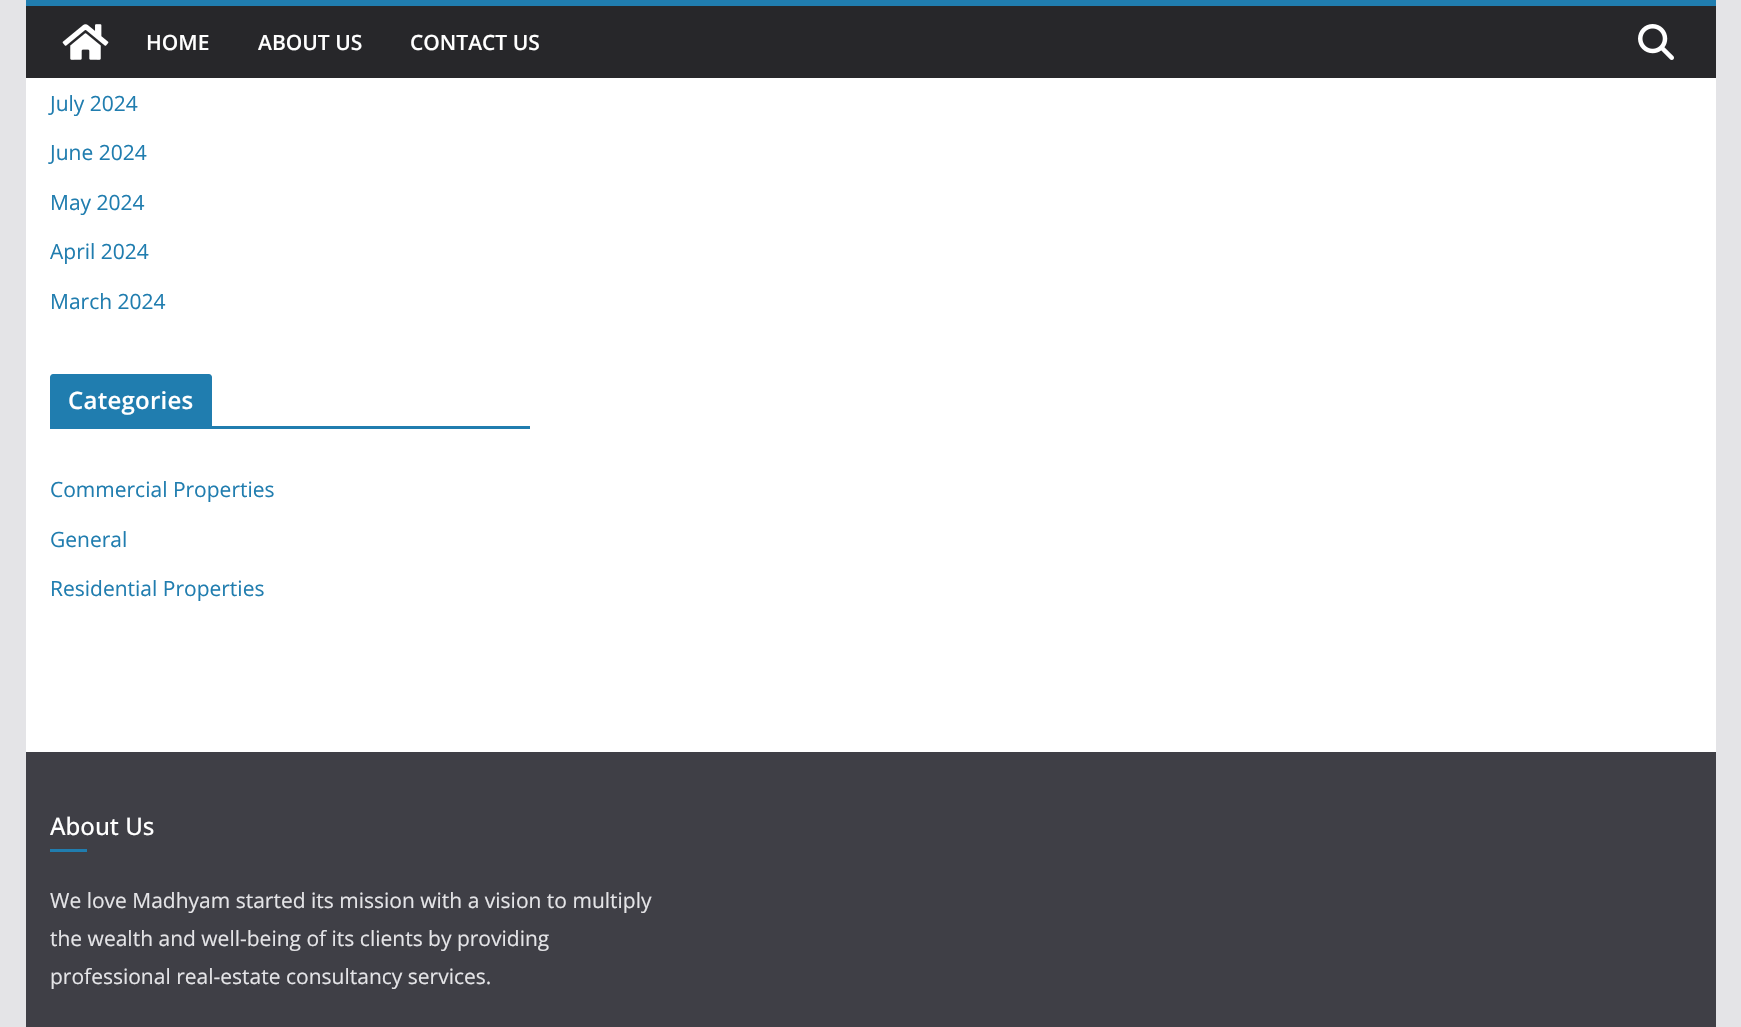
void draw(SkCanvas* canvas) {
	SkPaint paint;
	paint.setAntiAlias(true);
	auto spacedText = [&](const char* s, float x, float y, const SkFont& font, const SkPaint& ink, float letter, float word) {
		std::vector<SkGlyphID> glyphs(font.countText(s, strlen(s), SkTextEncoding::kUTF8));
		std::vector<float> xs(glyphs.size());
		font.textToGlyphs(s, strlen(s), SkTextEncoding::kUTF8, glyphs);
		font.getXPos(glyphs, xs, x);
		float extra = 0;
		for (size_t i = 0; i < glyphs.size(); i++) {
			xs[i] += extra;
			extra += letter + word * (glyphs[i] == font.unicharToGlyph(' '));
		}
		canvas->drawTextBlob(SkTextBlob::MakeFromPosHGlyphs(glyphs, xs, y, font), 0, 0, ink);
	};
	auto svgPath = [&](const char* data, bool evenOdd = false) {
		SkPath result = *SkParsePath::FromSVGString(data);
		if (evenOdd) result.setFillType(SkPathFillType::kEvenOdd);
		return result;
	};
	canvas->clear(0xffe4e4e7);
	paint.setColor(0xff27272a);
	canvas->drawRect(SkRect::MakeXYWH(26, 6, 1690, 72), paint);
	paint.setColor(0xff207daf);
	canvas->drawRect(SkRect::MakeXYWH(26, 0, 1690, 6), paint);
	canvas->drawImageRect(SkImages::DeferredFromEncodedData(SkData::MakeFromFileName("img1.png")), SkRect::MakeXYWH(62, 24, 47, 36), SkSamplingOptions());
	SkFont f1(fontMgr->matchFamilyStyle("Open Sans", SkFontStyle(600, SkFontStyle::kNormal_Width, SkFontStyle::kUpright_Slant)), 21);
	f1.setSubpixel(true);
	paint.setColor(0xffffffff);
	canvas->drawString("HOME", 146, 50, f1, paint);
	canvas->drawString("ABOUT US", 258, 50, f1, paint);
	canvas->drawString("CONTACT US", 410, 50, f1, paint);
	canvas->drawImageRect(SkImages::DeferredFromEncodedData(SkData::MakeFromFileName("img2.png")), SkRect::MakeXYWH(1638, 24, 36, 36), SkSamplingOptions());
	canvas->drawRect(SkRect::MakeXYWH(26, 78, 1690, 674), paint);
	SkFont f2(fontMgr->matchFamilyStyle("Open Sans", SkFontStyle::Normal()), 21);
	f2.setSubpixel(true);
	paint.setColor(0xff207daf);
	canvas->drawString("July 2024", 50, 111, f2, paint);
	canvas->drawString("June 2024", 50, 160, f2, paint);
	canvas->drawString("May 2024", 50, 210, f2, paint);
	canvas->drawString("April 2024", 50, 259, f2, paint);
	canvas->drawString("March 2024", 50, 309, f2, paint);
	canvas->drawRect(SkRect::MakeXYWH(50, 426, 480, 3), paint);
	canvas->drawPath(svgPath("M53 374H209C210.5 374 212 375.5 212 377V426H50V377C50 375.5 51.5 374 53 374Z"), paint);
	SkFont f3(fontMgr->matchFamilyStyle("Open Sans", SkFontStyle(600, SkFontStyle::kNormal_Width, SkFontStyle::kUpright_Slant)), 24);
	f3.setSubpixel(true);
	paint.setColor(0xffffffff);
	spacedText("Categories", 68, 409, f3, paint, 0.25, 0);
	paint.setColor(0xff207daf);
	canvas->drawString("Commercial Properties", 50, 497, f2, paint);
	canvas->drawString("General", 50, 547, f2, paint);
	canvas->drawString("Residential Properties", 50, 596, f2, paint);
	paint.setColor(0xff3f3f46);
	canvas->drawRect(SkRect::MakeXYWH(26, 752, 1690, 275), paint);
	SkFont f4(fontMgr->matchFamilyStyle("Open Sans", SkFontStyle(500, SkFontStyle::kNormal_Width, SkFontStyle::kUpright_Slant)), 24);
	f4.setSubpixel(true);
	paint.setColor(0xffffffff);
	canvas->drawString("About Us", 50, 835, f4, paint);
	paint.setColor(0xff207daf);
	canvas->drawRect(SkRect::MakeXYWH(50, 849, 37, 3), paint);
	paint.setColor(0xffe4e4e7);
	canvas->drawString("We love Madhyam started its mission with a vision to multiply", 50, 908, f2, paint);
	canvas->drawString("the wealth and well-being of its clients by providing", 50, 946, f2, paint);
	canvas->drawString("professional real-estate consultancy services.", 50, 984, f2, paint);
}
